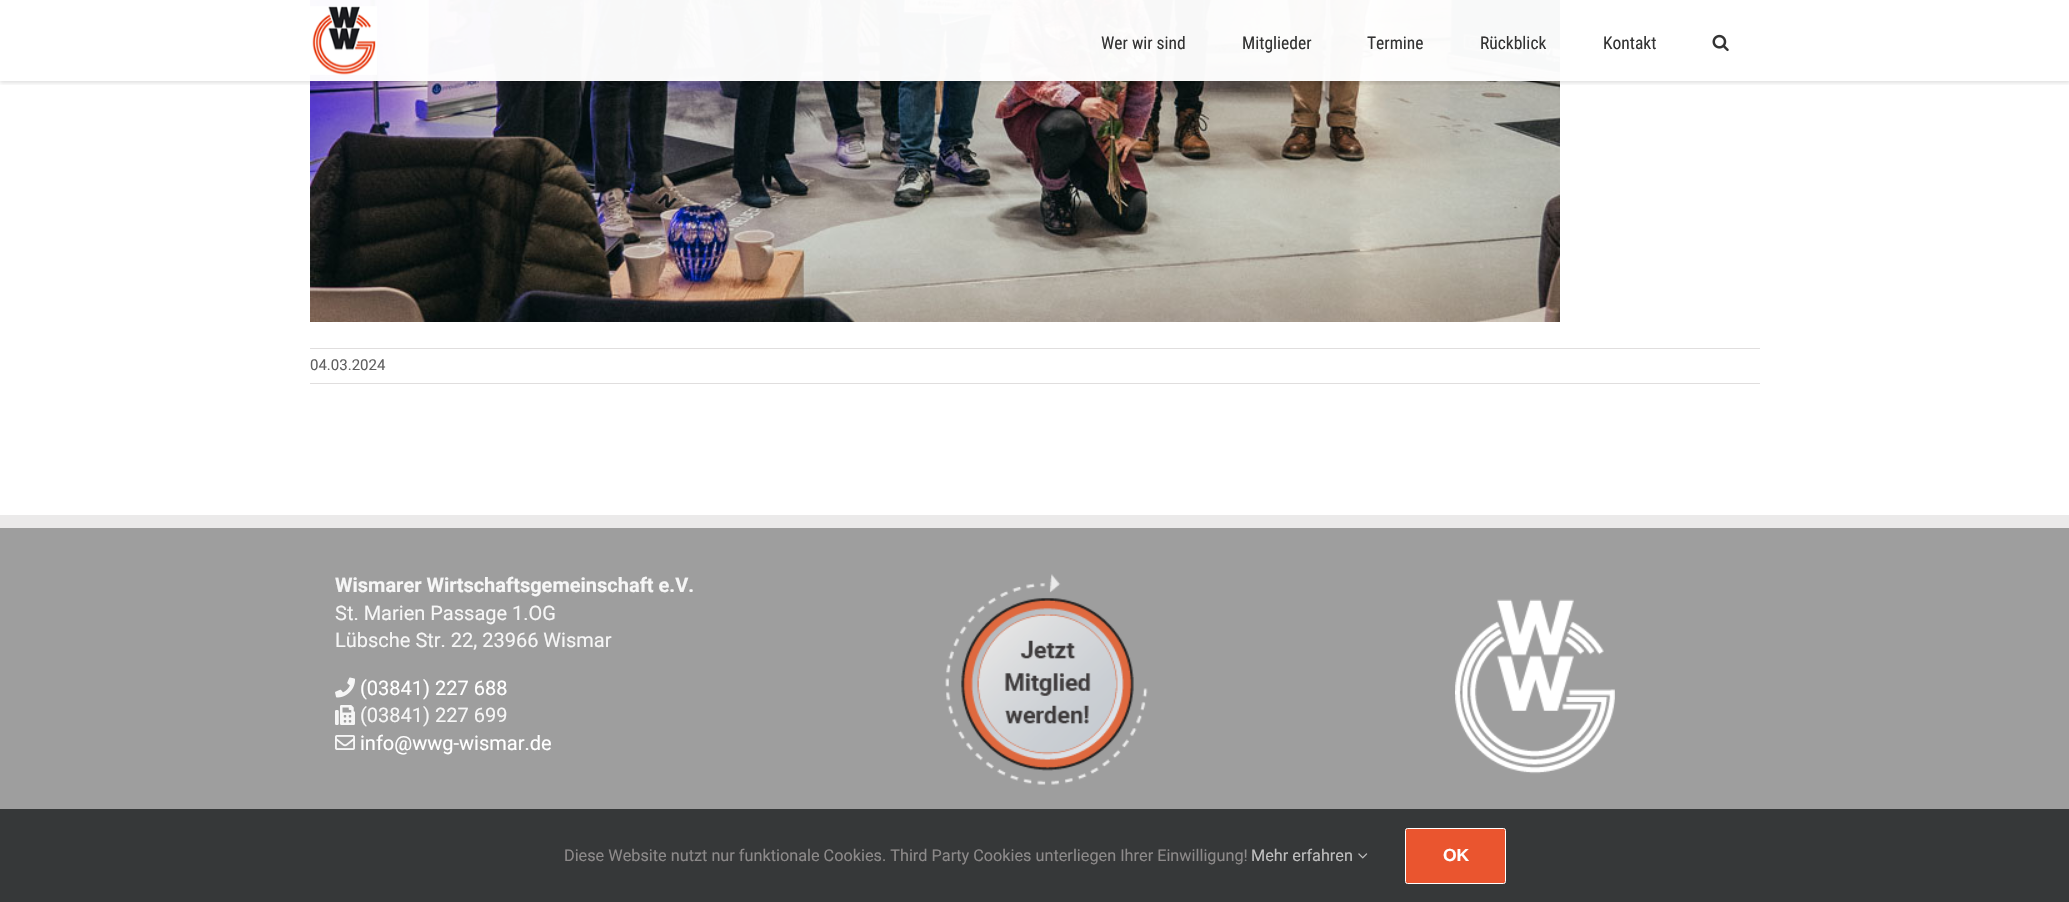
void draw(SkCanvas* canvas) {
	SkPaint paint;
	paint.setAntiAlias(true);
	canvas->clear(0xffffffff);
	canvas->drawImageRect(SkImages::DeferredFromEncodedData(SkData::MakeFromFileName("img3.png")), SkRect::MakeXYWH(310, 0, 1250, 322), SkSamplingOptions());
	canvas->save();
	canvas->clipRect(SkRect::MakeXYWH(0, 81, 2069, 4));
	paint.setColor(0x1f000000);
	paint.setMaskFilter(SkMaskFilter::MakeBlur(kNormal_SkBlurStyle, 2));
	canvas->drawRect(SkRect::MakeXYWH(0, 1, 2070, 82), paint);
	paint.setMaskFilter(nullptr);
	canvas->restore();
	paint.setColor(0xf7ffffff);
	canvas->drawRect(SkRect::MakeXYWH(310, 0, 1250, 81), paint);
	canvas->drawImageRect(SkImages::DeferredFromEncodedData(SkData::MakeFromFileName("img1.png")), SkRect::MakeXYWH(310, 6, 67, 69), SkSamplingOptions());
	SkFont f1(fontMgr->matchFamilyStyle("Roboto Condensed", SkFontStyle::Normal()), 17.5);
	f1.setSubpixel(true);
	paint.setColor(0xff333333);
	canvas->drawString("Wer wir sind", 1101, 49, f1, paint);
	canvas->drawString("Mitglieder", 1242, 49, f1, paint);
	canvas->drawString("Termine", 1367, 49, f1, paint);
	canvas->drawString("Rückblick", 1480, 49, f1, paint);
	canvas->drawString("Kontakt", 1603, 49, f1, paint);
	canvas->drawImageRect(SkImages::DeferredFromEncodedData(SkData::MakeFromFileName("img2.png")), SkRect::MakeXYWH(1712, 34, 17, 18), SkSamplingOptions());
	paint.setColor(0xffe0dede);
	canvas->drawRect(SkRect::MakeXYWH(310, 348, 1450, 1), paint);
	canvas->drawRect(SkRect::MakeXYWH(310, 383, 1450, 1), paint);
	SkFont f2(fontMgr->matchFamilyStyle("Roboto", SkFontStyle::Normal()), 15);
	f2.setSubpixel(true);
	paint.setColor(0xff606060);
	canvas->drawString("04.03.2024", 310, 370, f2, paint);
	paint.setColor(0xff9e9e9e);
	canvas->drawRect(SkRect::MakeXYWH(0, 528, 2069, 281), paint);
	paint.setColor(0xffebeaea);
	canvas->drawRect(SkRect::MakeXYWH(0, 515, 2069, 13), paint);
	SkFont f3(fontMgr->matchFamilyStyle("Roboto", SkFontStyle::Bold()), 20);
	f3.setSubpixel(true);
	paint.setColor(0xfff6f6f6);
	canvas->drawString("Wismarer Wirtschaftsgemeinschaft e.V.", 335, 592, f3, paint);
	SkFont f4(fontMgr->matchFamilyStyle("Roboto", SkFontStyle::Normal()), 20);
	f4.setSubpixel(true);
	canvas->drawString("St. Marien Passage 1.OG", 335, 620, f4, paint);
	canvas->drawString("Lübsche Str. 22, 23966 Wismar", 335, 647, f4, paint);
	canvas->drawImageRect(SkImages::DeferredFromEncodedData(SkData::MakeFromFileName("img4.png")), SkRect::MakeXYWH(335, 677, 20, 21), SkSamplingOptions());
	paint.setColor(0xffffffff);
	canvas->drawString("(03841) 227 688", 360, 695, f4, paint);
	canvas->drawImageRect(SkImages::DeferredFromEncodedData(SkData::MakeFromFileName("img5.png")), SkRect::MakeXYWH(335, 705, 20, 20), SkSamplingOptions());
	paint.setColor(0xfff6f6f6);
	canvas->drawString("(03841) 227 699", 360, 722, f4, paint);
	canvas->drawImageRect(SkImages::DeferredFromEncodedData(SkData::MakeFromFileName("img6.png")), SkRect::MakeXYWH(335, 735, 20, 15), SkSamplingOptions());
	paint.setColor(0xffffffff);
	canvas->drawString("info@wwg-wismar.de", 360, 750, f4, paint);
	canvas->drawImageRect(SkImages::DeferredFromEncodedData(SkData::MakeFromFileName("img7.png")), SkRect::MakeXYWH(945, 574, 203, 211), SkSamplingOptions());
	canvas->drawImageRect(SkImages::DeferredFromEncodedData(SkData::MakeFromFileName("img8.png")), SkRect::MakeXYWH(1455, 599, 160, 175), SkSamplingOptions());
	paint.setColor(0xff363839);
	canvas->drawRect(SkRect::MakeXYWH(0, 809, 2069, 93), paint);
	SkFont f5(fontMgr->matchFamilyStyle("Roboto", SkFontStyle::Normal()), 16.25);
	f5.setSubpixel(true);
	paint.setColor(0xff8c8989);
	canvas->drawString("Diese Website nutzt nur funktionale Cookies. Third Party Cookies unterliegen Ihrer Einwilligung!", 564, 861, f5, paint);
	paint.setColor(0xffbfbfbf);
	canvas->drawString("Mehr erfahren", 1251, 861, f5, paint);
	canvas->drawImageRect(SkImages::DeferredFromEncodedData(SkData::MakeFromFileName("img9.png")), SkRect::MakeXYWH(1358, 853, 10, 6), SkSamplingOptions());
	paint.setColor(0xffea552f);
	canvas->drawRoundRect(SkRect::MakeXYWH(1405.5, 828.5, 100, 55), 2, 2, paint);
	paint.setStroke(true);
	paint.setStrokeWidth(1);
	paint.setColor(0xffffffff);
	canvas->drawRoundRect(SkRect::MakeXYWH(1405.5, 828.5, 100, 55), 2, 2, paint);
	SkFont f6(fontMgr->matchFamilyStyle("Liberation Sans", SkFontStyle::Bold()), 17.5);
	f6.setSubpixel(true);
	paint.setStroke(false);
	canvas->drawString("OK", 1443, 861, f6, paint);
}
